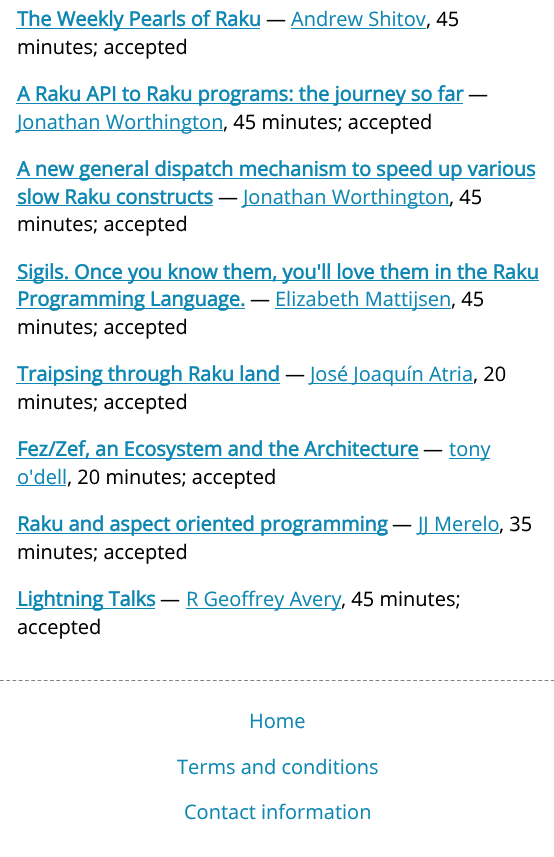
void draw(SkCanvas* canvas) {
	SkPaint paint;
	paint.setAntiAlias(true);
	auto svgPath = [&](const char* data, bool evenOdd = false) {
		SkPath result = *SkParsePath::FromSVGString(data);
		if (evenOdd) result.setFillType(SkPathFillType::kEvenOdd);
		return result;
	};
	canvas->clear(0xffffffff);
	paint.setColor(0xff0e87b3);
	canvas->drawRect(SkRect::MakeXYWH(16, 28, 244, 1), paint);
	SkFont f1(fontMgr->matchFamilyStyle("Open Sans", SkFontStyle::Bold()), 20);
	f1.setSubpixel(true);
	canvas->drawString("The Weekly Pearls of Raku", 17, 26, f1, paint);
	SkFont f2(fontMgr->matchFamilyStyle("Open Sans", SkFontStyle::Normal()), 20);
	f2.setSubpixel(true);
	paint.setColor(0xff000000);
	canvas->drawString("—", 266, 26, f2, paint);
	paint.setColor(0xff0e87b3);
	canvas->drawString("Andrew Shitov", 291, 26, f2, paint);
	canvas->drawRect(SkRect::MakeXYWH(291, 28, 135, 1), paint);
	paint.setColor(0xff000000);
	canvas->drawString(", 45", 426, 26, f2, paint);
	canvas->drawString("minutes; accepted", 17, 54, f2, paint);
	paint.setColor(0xff0e87b3);
	canvas->drawRect(SkRect::MakeXYWH(16, 103, 447, 1), paint);
	canvas->drawString("A Raku API to Raku programs: the journey so far", 17, 101, f1, paint);
	paint.setColor(0xff000000);
	canvas->drawString("—", 468, 101, f2, paint);
	paint.setColor(0xff0e87b3);
	canvas->drawRect(SkRect::MakeXYWH(16, 130, 207, 1), paint);
	canvas->drawString("Jonathan Worthington", 17, 129, f2, paint);
	paint.setColor(0xff000000);
	canvas->drawString(", 45 minutes; accepted", 223, 129, f2, paint);
	paint.setColor(0xff0e87b3);
	canvas->drawRect(SkRect::MakeXYWH(16, 178, 519, 1), paint);
	canvas->drawString("A new general dispatch mechanism to speed up various", 17, 176, f1, paint);
	canvas->drawString("slow Raku constructs", 17, 204, f1, paint);
	canvas->drawRect(SkRect::MakeXYWH(16, 205, 197, 1), paint);
	paint.setColor(0xff000000);
	canvas->drawString("—", 218, 204, f2, paint);
	paint.setColor(0xff0e87b3);
	canvas->drawRect(SkRect::MakeXYWH(243, 205, 207, 1), paint);
	canvas->drawString("Jonathan Worthington", 243, 204, f2, paint);
	paint.setColor(0xff000000);
	canvas->drawString(", 45", 449, 204, f2, paint);
	canvas->drawString("minutes; accepted", 17, 231, f2, paint);
	paint.setColor(0xff0e87b3);
	canvas->drawRect(SkRect::MakeXYWH(16, 280, 523, 1), paint);
	canvas->drawString("Sigils. Once you know them, you'll love them in the Raku", 17, 279, f1, paint);
	canvas->drawRect(SkRect::MakeXYWH(16, 308, 229, 1), paint);
	canvas->drawString("Programming Language.", 17, 306, f1, paint);
	paint.setColor(0xff000000);
	canvas->drawString("—", 250, 306, f2, paint);
	paint.setColor(0xff0e87b3);
	canvas->drawRect(SkRect::MakeXYWH(275, 308, 176, 1), paint);
	canvas->drawString("Elizabeth Mattijsen", 275, 306, f2, paint);
	paint.setColor(0xff000000);
	canvas->drawString(", 45", 451, 306, f2, paint);
	canvas->drawString("minutes; accepted", 17, 334, f2, paint);
	paint.setColor(0xff0e87b3);
	canvas->drawRect(SkRect::MakeXYWH(16, 383, 264, 1), paint);
	canvas->drawString("Traipsing through Raku land", 17, 381, f1, paint);
	paint.setColor(0xff000000);
	canvas->drawString("—", 285, 381, f2, paint);
	paint.setColor(0xff0e87b3);
	canvas->drawRect(SkRect::MakeXYWH(310, 383, 163, 1), paint);
	canvas->drawString("José Joaquín Atria", 310, 381, f2, paint);
	paint.setColor(0xff000000);
	canvas->drawString(", 20", 473, 381, f2, paint);
	canvas->drawString("minutes; accepted", 17, 409, f2, paint);
	paint.setColor(0xff0e87b3);
	canvas->drawRect(SkRect::MakeXYWH(16, 458, 403, 1), paint);
	canvas->drawString("Fez/Zef, an Ecosystem and the Architecture", 17, 456, f1, paint);
	paint.setColor(0xff000000);
	canvas->drawString("—", 423, 456, f2, paint);
	paint.setColor(0xff0e87b3);
	canvas->drawRect(SkRect::MakeXYWH(449, 458, 41, 1), paint);
	canvas->drawString("tony", 449, 456, f2, paint);
	canvas->drawString("o'dell", 17, 484, f2, paint);
	canvas->drawRect(SkRect::MakeXYWH(16, 485, 50, 1), paint);
	paint.setColor(0xff000000);
	canvas->drawString(", 20 minutes; accepted", 67, 484, f2, paint);
	paint.setColor(0xff0e87b3);
	canvas->drawRect(SkRect::MakeXYWH(16, 533, 372, 1), paint);
	canvas->drawString("Raku and aspect oriented programming", 17, 531, f1, paint);
	paint.setColor(0xff000000);
	canvas->drawString("—", 392, 531, f2, paint);
	paint.setColor(0xff0e87b3);
	canvas->drawRect(SkRect::MakeXYWH(418, 533, 81, 1), paint);
	canvas->drawString("JJ Merelo", 418, 531, f2, paint);
	paint.setColor(0xff000000);
	canvas->drawString(", 35", 499, 531, f2, paint);
	canvas->drawString("minutes; accepted", 17, 559, f2, paint);
	paint.setColor(0xff0e87b3);
	canvas->drawRect(SkRect::MakeXYWH(16, 608, 139, 1), paint);
	canvas->drawString("Lightning Talks", 17, 606, f1, paint);
	paint.setColor(0xff000000);
	canvas->drawString("—", 160, 606, f2, paint);
	paint.setColor(0xff0e87b3);
	canvas->drawRect(SkRect::MakeXYWH(186, 608, 155, 1), paint);
	canvas->drawString("R Geoffrey Avery", 186, 606, f2, paint);
	paint.setColor(0xff000000);
	canvas->drawString(", 45 minutes;", 341, 606, f2, paint);
	canvas->drawString("accepted", 17, 634, f2, paint);
	paint.setStroke(true);
	paint.setStrokeWidth(1.2);
	paint.setColor(0xff808080);
	paint.setPathEffect(SkDashPathEffect::Make({{3.75f, 2.51f}}, 0));
	canvas->drawPath(svgPath("M0 680.5H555"), paint);
	paint.setPathEffect(nullptr);
	paint.setStroke(false);
	paint.setColor(0xff0e87b3);
	canvas->drawString("Home", 249, 728, f2, paint);
	canvas->drawString("Terms and conditions", 177, 774, f2, paint);
	canvas->drawString("Contact information", 184, 819, f2, paint);
}
